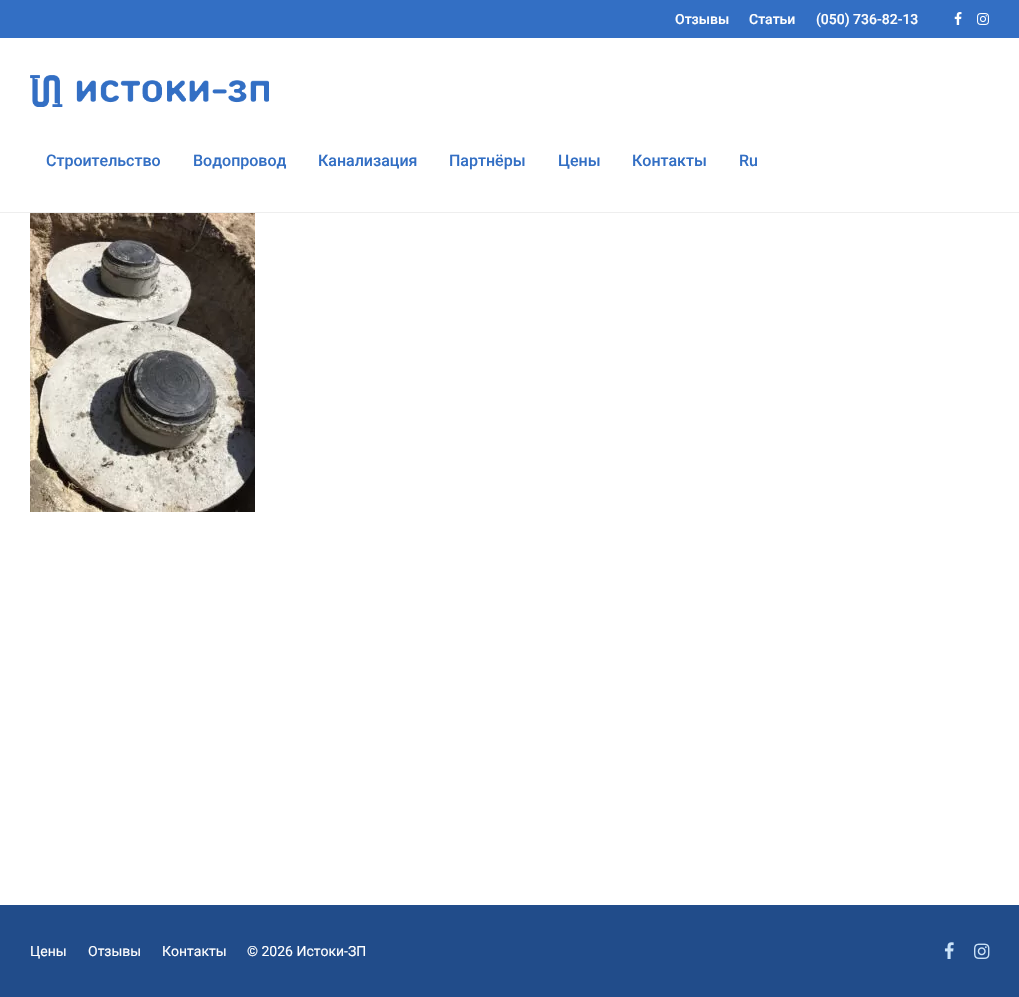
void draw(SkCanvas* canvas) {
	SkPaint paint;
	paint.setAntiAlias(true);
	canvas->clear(0xffffffff);
	paint.setColor(0xff336fc4);
	canvas->drawRect(SkRect::MakeXYWH(0, 0, 1019, 38), paint);
	SkFont f1(fontMgr->matchFamilyStyle("Roboto", SkFontStyle(500, SkFontStyle::kNormal_Width, SkFontStyle::kUpright_Slant)), 14);
	f1.setSubpixel(true);
	paint.setColor(0xffffffff);
	canvas->drawString("Отзывы", 675, 24, f1, paint);
	canvas->drawString("Статьи", 749, 24, f1, paint);
	canvas->drawString("(050) 736-82-13", 816, 24, f1, paint);
	canvas->drawImageRect(SkImages::DeferredFromEncodedData(SkData::MakeFromFileName("img1.png")), SkRect::MakeXYWH(954, 12, 8, 13), SkSamplingOptions());
	canvas->drawImageRect(SkImages::DeferredFromEncodedData(SkData::MakeFromFileName("img2.png")), SkRect::MakeXYWH(977, 13, 12, 12), SkSamplingOptions());
	paint.setColor(0xffeeeeee);
	canvas->drawRect(SkRect::MakeXYWH(0, 212, 1019, 1), paint);
	canvas->drawImageRect(SkImages::DeferredFromEncodedData(SkData::MakeFromFileName("img3.png")), SkRect::MakeXYWH(30, 75, 239, 32), SkSamplingOptions());
	SkFont f2(fontMgr->matchFamilyStyle("Roboto", SkFontStyle(500, SkFontStyle::kNormal_Width, SkFontStyle::kUpright_Slant)), 16);
	f2.setSubpixel(true);
	paint.setColor(0xff336fc4);
	canvas->drawString("Строительство", 46, 166, f2, paint);
	canvas->drawString("Водопровод", 193, 166, f2, paint);
	canvas->drawString("Канализация", 318, 166, f2, paint);
	canvas->drawString("Партнёры", 449, 166, f2, paint);
	canvas->drawString("Цены", 558, 166, f2, paint);
	canvas->drawString("Контакты", 632, 166, f2, paint);
	canvas->drawString("Ru", 739, 166, f2, paint);
	canvas->drawImageRect(SkImages::DeferredFromEncodedData(SkData::MakeFromFileName("img4.png")), SkRect::MakeXYWH(30, 213, 225, 299), SkSamplingOptions());
	paint.setColor(0xff214c8a);
	canvas->drawRect(SkRect::MakeXYWH(0, 905, 1019, 92), paint);
	SkFont f3(fontMgr->matchFamilyStyle("Roboto", SkFontStyle::Normal()), 14);
	f3.setSubpixel(true);
	paint.setColor(0xffffffff);
	canvas->drawString("Цены", 30, 956, f3, paint);
	canvas->drawString("Отзывы", 88, 956, f3, paint);
	canvas->drawString("Контакты", 162, 956, f3, paint);
	canvas->drawString("© 2026 Истоки-ЗП", 247, 956, f3, paint);
	canvas->drawImageRect(SkImages::DeferredFromEncodedData(SkData::MakeFromFileName("img5.png")), SkRect::MakeXYWH(944, 942, 10, 17), SkSamplingOptions());
	canvas->drawImageRect(SkImages::DeferredFromEncodedData(SkData::MakeFromFileName("img6.png")), SkRect::MakeXYWH(974, 943, 16, 16), SkSamplingOptions());
}
